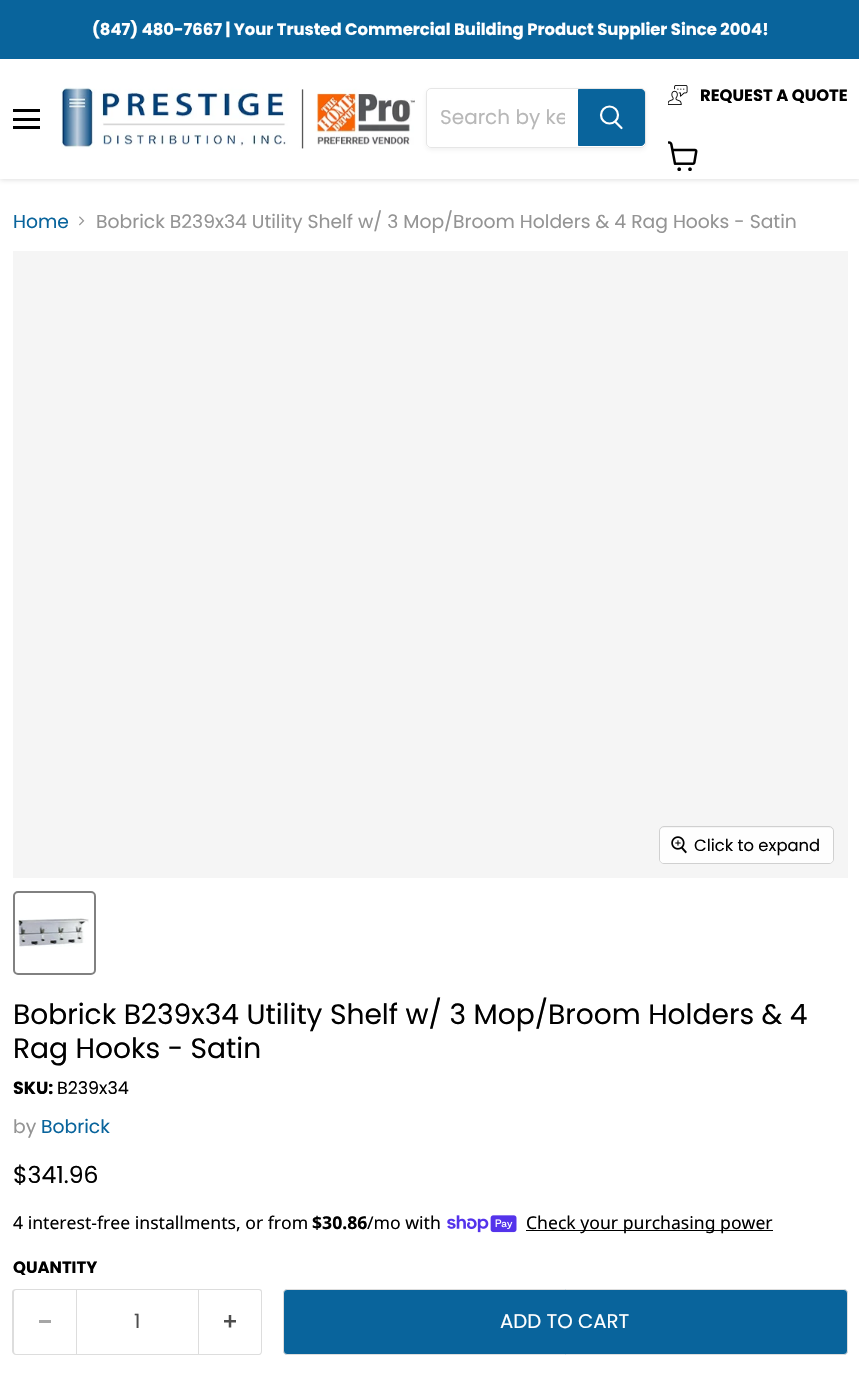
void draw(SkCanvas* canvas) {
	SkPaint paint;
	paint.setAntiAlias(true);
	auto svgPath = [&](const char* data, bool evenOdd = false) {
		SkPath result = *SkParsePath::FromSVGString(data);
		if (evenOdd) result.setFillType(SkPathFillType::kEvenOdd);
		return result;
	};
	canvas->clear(0xffffffff);
	paint.setColor(0x40808080);
	paint.setMaskFilter(SkMaskFilter::MakeBlur(kNormal_SkBlurStyle, 2.5));
	canvas->drawRect(SkRect::MakeXYWH(0, 60, 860, 120), paint);
	paint.setMaskFilter(nullptr);
	paint.setColor(0xff09649c);
	canvas->drawRect(SkRect::MakeXYWH(0, 0, 859, 59), paint);
	SkFont f1(fontMgr->matchFamilyStyle("Poppins", SkFontStyle::Bold()), 16.4);
	f1.setSubpixel(true);
	paint.setColor(0xffffffff);
	canvas->drawString("(847) 480-7667 | Your Trusted Commercial Building Product Supplier Since 2004!", 92, 35, f1, paint);
	canvas->drawRect(SkRect::MakeXYWH(0, 59, 859, 120), paint);
	canvas->drawImageRect(SkImages::DeferredFromEncodedData(SkData::MakeFromFileName("img1.png")), SkRect::MakeXYWH(668, 85, 20, 20), SkSamplingOptions());
	paint.setColor(0xff000000);
	canvas->drawString("REQUEST A QUOTE", 700, 101, f1, paint);
	canvas->drawImageRect(SkImages::DeferredFromEncodedData(SkData::MakeFromFileName("img2.png")), SkRect::MakeXYWH(668, 141, 30, 30), SkSamplingOptions());
	canvas->drawRect(SkRect::MakeXYWH(13, 109, 27, 3), paint);
	canvas->drawRect(SkRect::MakeXYWH(13, 118, 27, 3), paint);
	canvas->drawRect(SkRect::MakeXYWH(13, 126, 27, 3), paint);
	canvas->drawImageRect(SkImages::DeferredFromEncodedData(SkData::MakeFromFileName("img3.png")), SkRect::MakeXYWH(61, 87, 354, 62), SkSamplingOptions());
	canvas->save();
	canvas->clipPath(svgPath("M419 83H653V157H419ZM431 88H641C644 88 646 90 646 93V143C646 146 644 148 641 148H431C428 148 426 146 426 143V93C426 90 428 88 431 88Z", true), true);
	paint.setColor(0x1c808080);
	paint.setMaskFilter(SkMaskFilter::MakeBlur(kNormal_SkBlurStyle, 2));
	canvas->drawRoundRect(SkRect::MakeXYWH(426, 90, 220, 60), 5, 5, paint);
	paint.setMaskFilter(nullptr);
	canvas->restore();
	paint.setStroke(true);
	paint.setStrokeWidth(1);
	paint.setColor(0x33808080);
	canvas->drawRoundRect(SkRect::MakeXYWH(426.5, 88.5, 219, 59), 4.5, 4.5, paint);
	canvas->save();
	canvas->clipRect(SkRect::MakeXYWH(440, 101, 125, 32));
	SkFont f2(fontMgr->matchFamilyStyle("Poppins", SkFontStyle::Normal()), 20);
	f2.setSubpixel(true);
	paint.setStroke(false);
	paint.setColor(0xffb8b8b8);
	canvas->drawString("Search by ke", 440, 124, f2, paint);
	canvas->restore();
	paint.setColor(0xff09649c);
	canvas->drawPath(svgPath("M578.5 89.5H641C643 89.5 644.5 91 644.5 93V142C644.5 144 643 145.5 641 145.5H578.5Z"), paint);
	paint.setStroke(true);
	canvas->drawPath(svgPath("M578.5 89.5H641C643 89.5 644.5 91 644.5 93V142C644.5 144 643 145.5 641 145.5H578.5Z"), paint);
	paint.setStrokeWidth(2.2);
	paint.setStrokeCap(SkPaint::kRound_Cap);
	paint.setColor(0xffffffff);
	canvas->drawPath(svgPath("M621.5 128L615.5 122"), paint);
	paint.setStrokeCap(SkPaint::kButt_Cap);
	canvas->drawCircle(609.5, 115, 8.5, paint);
	SkFont f3(fontMgr->matchFamilyStyle("Poppins", SkFontStyle::Normal()), 18.75);
	f3.setSubpixel(true);
	paint.setStroke(false);
	paint.setColor(0xff09649c);
	canvas->drawString("Home", 13, 228, f3, paint);
	canvas->drawImageRect(SkImages::DeferredFromEncodedData(SkData::MakeFromFileName("img4.png")), SkRect::MakeXYWH(79, 216, 6, 10), SkSamplingOptions());
	paint.setColor(0xff949494);
	canvas->drawString("Bobrick B239x34 Utility Shelf w/ 3 Mop/Broom Holders & 4 Rag Hooks - Satin", 96, 228, f3, paint);
	paint.setColor(0xfff5f5f5);
	canvas->drawRect(SkRect::MakeXYWH(13, 251, 835, 627), paint);
	paint.setStroke(true);
	paint.setStrokeWidth(1);
	paint.setColor(0xffd0d0d0);
	canvas->drawRoundRect(SkRect::MakeXYWH(659.5, 826.5, 174, 37), 4.5, 4.5, paint);
	paint.setStroke(false);
	paint.setColor(0xe6ffffff);
	canvas->drawRoundRect(SkRect::MakeXYWH(660, 828, 173, 35), 4, 4, paint);
	canvas->drawImageRect(SkImages::DeferredFromEncodedData(SkData::MakeFromFileName("img5.png")), SkRect::MakeXYWH(671, 836, 16, 18), SkSamplingOptions());
	SkFont f4(fontMgr->matchFamilyStyle("Poppins", SkFontStyle::Normal()), 16.4);
	f4.setSubpixel(true);
	paint.setColor(0xff000000);
	canvas->drawString("Click to expand", 694, 851, f4, paint);
	paint.setStroke(true);
	paint.setStrokeWidth(2);
	paint.setColor(0xff818181);
	canvas->drawRoundRect(SkRect::MakeXYWH(14, 892, 81, 82), 4, 4, paint);
	canvas->drawImageRect(SkImages::DeferredFromEncodedData(SkData::MakeFromFileName("img6.png")), SkRect::MakeXYWH(16, 918, 73, 29), SkSamplingOptions());
	SkFont f5(fontMgr->matchFamilyStyle("Poppins", SkFontStyle::Normal()), 28.1);
	f5.setSubpixel(true);
	paint.setStroke(false);
	paint.setColor(0xff000000);
	canvas->drawString("Bobrick B239x34 Utility Shelf w/ 3 Mop/Broom Holders & 4", 13, 1024, f5, paint);
	canvas->drawString("Rag Hooks - Satin", 13, 1058, f5, paint);
	SkFont f6(fontMgr->matchFamilyStyle("Poppins", SkFontStyle::Bold()), 17.5);
	f6.setSubpixel(true);
	canvas->drawString("SKU:", 13, 1094, f6, paint);
	SkFont f7(fontMgr->matchFamilyStyle("Poppins", SkFontStyle::Normal()), 17.5);
	f7.setSubpixel(true);
	canvas->drawString("B239x34", 57, 1094, f7, paint);
	paint.setColor(0xff949494);
	canvas->drawString("by", 13, 1133, f3, paint);
	paint.setColor(0xff09649c);
	canvas->drawString("Bobrick", 41, 1133, f3, paint);
	SkFont f8(fontMgr->matchFamilyStyle("Poppins", SkFontStyle::Normal()), 23.5);
	f8.setSubpixel(true);
	paint.setColor(0xff000000);
	canvas->drawString("$341.96", 13, 1183, f8, paint);
	SkFont f9(fontMgr->matchFamilyStyle("Noto Sans", SkFontStyle::Normal()), 17.6);
	f9.setSubpixel(true);
	canvas->drawString("4 interest-free installments, or from", 13, 1229, f9, paint);
	SkFont f10(fontMgr->matchFamilyStyle("Noto Sans", SkFontStyle::Bold()), 17.6);
	f10.setSubpixel(true);
	canvas->drawString("$30.86", 312, 1229, f10, paint);
	canvas->drawString("/mo with", 367, 1229, f9, paint);
	canvas->drawImageRect(SkImages::DeferredFromEncodedData(SkData::MakeFromFileName("img7.png")), SkRect::MakeXYWH(447, 1215, 70, 18), SkSamplingOptions());
	canvas->drawRect(SkRect::MakeXYWH(526, 1230, 247, 1), paint);
	canvas->drawString("Check your purchasing power", 526, 1229, f9, paint);
	canvas->drawString("QUANTITY", 13, 1273, f1, paint);
	paint.setColor(0xffdddddd);
	canvas->drawPath(svgPath("M16 1289H76V1355H16C14 1355 12 1353 12 1351V1292C12 1290 14 1289 16 1289ZM16 1290H76V1354H16C15 1354 14 1353 14 1351V1292C14 1291 15 1290 16 1290Z", true), paint);
	paint.setColor(0xffa6a6a6);
	canvas->drawRect(SkRect::MakeXYWH(39, 1320, 12, 3), paint);
	paint.setStroke(true);
	paint.setStrokeWidth(1);
	paint.setColor(0xffdddddd);
	canvas->drawRect(SkRect::MakeXYWH(76.5, 1289.5, 122, 65), paint);
	SkFont f11(fontMgr->matchFamilyStyle("Poppins", SkFontStyle::Normal()), 19.75);
	f11.setSubpixel(true);
	paint.setStroke(false);
	paint.setColor(0xff4d4d4d);
	canvas->drawString("1", 134, 1328, f11, paint);
	paint.setColor(0xffdddddd);
	canvas->drawPath(svgPath("M199 1289H259C261 1289 262 1290 262 1292V1351C262 1353 261 1355 259 1355H199ZM199 1290H259C260 1290 261 1291 261 1292V1351C261 1353 260 1354 259 1354H199Z", true), paint);
	canvas->drawImageRect(SkImages::DeferredFromEncodedData(SkData::MakeFromFileName("img8.png")), SkRect::MakeXYWH(224, 1315, 12, 13), SkSamplingOptions());
	paint.setColor(0xff09649c);
	canvas->drawRoundRect(SkRect::MakeXYWH(283.5, 1289.5, 564, 65), 3.5, 3.5, paint);
	paint.setStroke(true);
	paint.setColor(0xffdddddd);
	canvas->drawRoundRect(SkRect::MakeXYWH(283.5, 1289.5, 564, 65), 3.5, 3.5, paint);
	paint.setStroke(false);
	paint.setColor(0xffffffff);
	canvas->drawString("ADD TO CART", 500, 1328, f11, paint);
}
